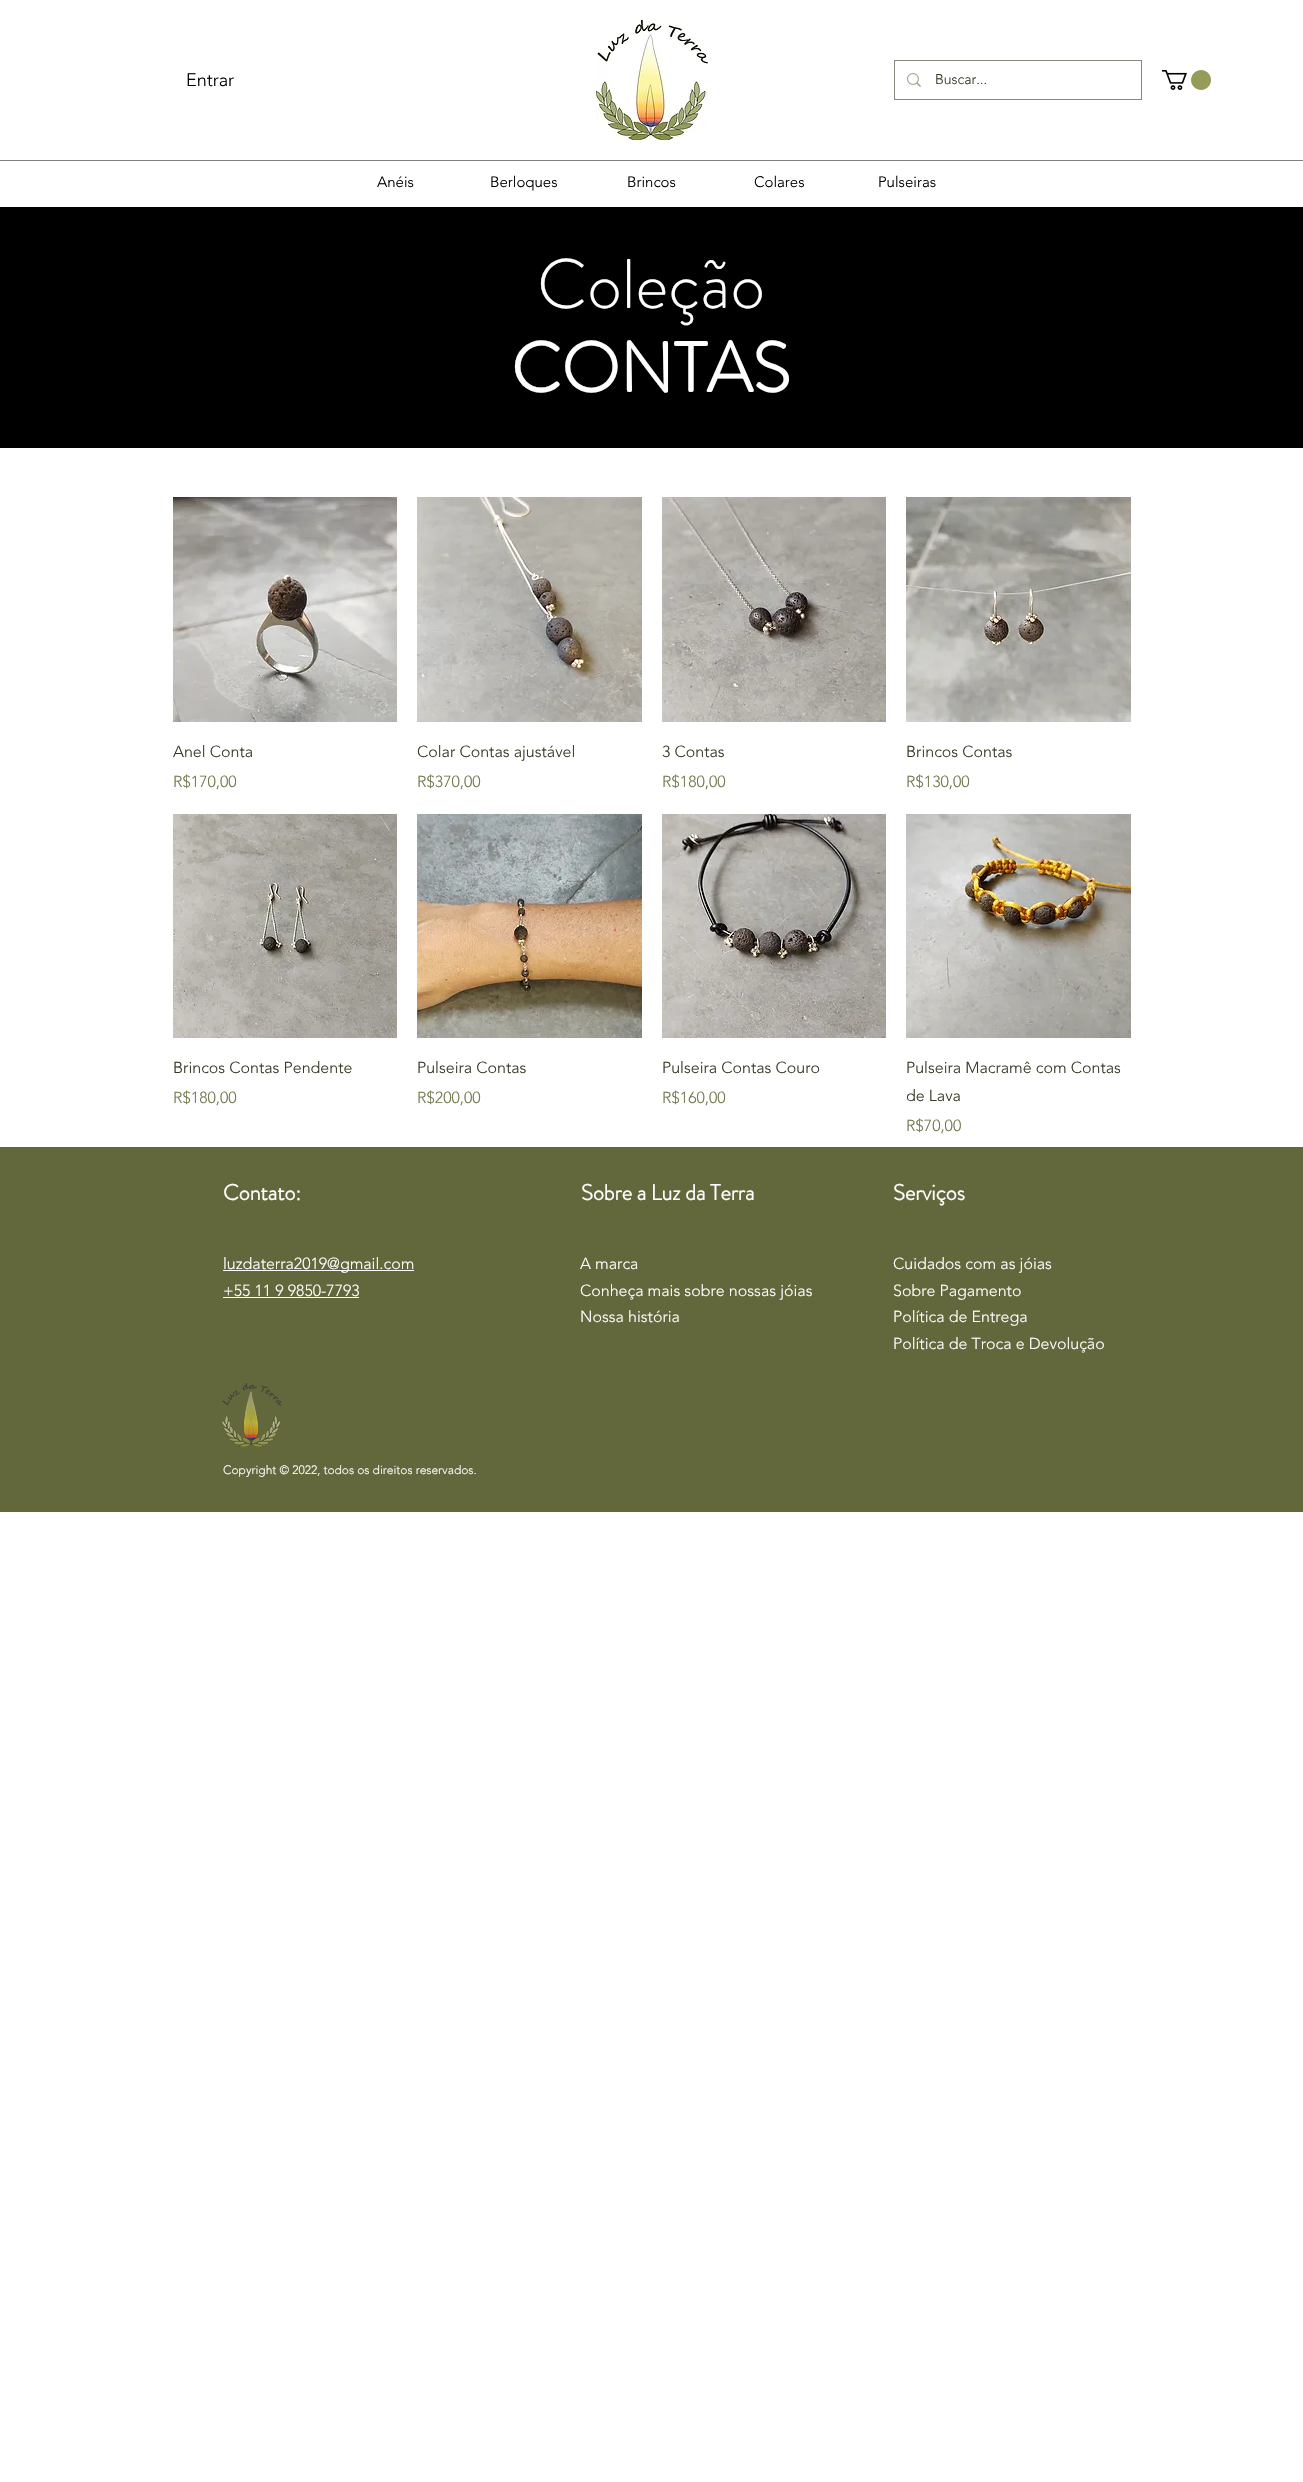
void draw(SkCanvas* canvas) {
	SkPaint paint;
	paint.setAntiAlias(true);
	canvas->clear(0xffffffff);
	SkFont f1(fontMgr->matchFamilyStyle("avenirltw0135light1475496", SkFontStyle(300, SkFontStyle::kNormal_Width, SkFontStyle::kUpright_Slant)), 18);
	f1.setSubpixel(true);
	paint.setColor(0xff000000);
	canvas->drawString("Entrar", 186, 86, f1, paint);
	canvas->drawImageRect(SkImages::DeferredFromEncodedData(SkData::MakeFromFileName("img1.png")), SkRect::MakeXYWH(596, 20, 112, 120), SkSamplingOptions());
	paint.setStroke(true);
	paint.setStrokeWidth(1);
	paint.setColor(0xff86887c);
	canvas->drawRect(SkRect::MakeXYWH(894.5, 60.5, 247, 39), paint);
	canvas->drawImageRect(SkImages::DeferredFromEncodedData(SkData::MakeFromFileName("img2.png")), SkRect::MakeXYWH(907, 73, 14, 14), SkSamplingOptions());
	SkFont f2(fontMgr->matchFamilyStyle("avenirltw0135light1475496", SkFontStyle(300, SkFontStyle::kNormal_Width, SkFontStyle::kUpright_Slant)), 14);
	f2.setSubpixel(true);
	paint.setStroke(false);
	paint.setColor(0xff363825);
	canvas->drawString("Buscar...", 935, 84, f2, paint);
	canvas->drawImageRect(SkImages::DeferredFromEncodedData(SkData::MakeFromFileName("img3.png")), SkRect::MakeXYWH(1162, 70, 49, 20), SkSamplingOptions());
	paint.setColor(0xff808080);
	canvas->drawRect(SkRect::MakeXYWH(0, 160, 1303, 1), paint);
	SkFont f3(fontMgr->matchFamilyStyle("avenirltw0135light1475496", SkFontStyle(300, SkFontStyle::kNormal_Width, SkFontStyle::kUpright_Slant)), 15);
	f3.setSubpixel(true);
	paint.setColor(0xff000000);
	canvas->drawString("Anéis", 377, 187, f3, paint);
	canvas->drawString("Berloques", 490, 187, f3, paint);
	canvas->drawString("Brincos", 627, 187, f3, paint);
	canvas->drawString("Colares", 754, 187, f3, paint);
	canvas->drawString("Pulseiras", 878, 187, f3, paint);
	canvas->drawRect(SkRect::MakeXYWH(0, 207, 1303, 241), paint);
	SkFont f4(fontMgr->matchFamilyStyle("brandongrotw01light", SkFontStyle(300, SkFontStyle::kNormal_Width, SkFontStyle::kUpright_Slant)), 70);
	f4.setSubpixel(true);
	paint.setColor(0xffffffff);
	canvas->drawString("Coleção", 537, 308, f4, paint);
	SkFont f5(fontMgr->matchFamilyStyle("brandongrotw01light", SkFontStyle::Bold()), 70);
	f5.setSubpixel(true);
	canvas->drawString("CONTAS", 511, 392, f5, paint);
	canvas->drawImageRect(SkImages::DeferredFromEncodedData(SkData::MakeFromFileName("img4.png")), SkRect::MakeXYWH(173, 497, 224, 225), SkSamplingOptions());
	SkFont f6(fontMgr->matchFamilyStyle("avenirltw0135light1475496", SkFontStyle(300, SkFontStyle::kNormal_Width, SkFontStyle::kUpright_Slant)), 16);
	f6.setSubpixel(true);
	paint.setColor(0xff363825);
	canvas->drawString("Anel Conta", 173, 757, f6, paint);
	paint.setColor(0xff73774e);
	canvas->drawString("R$170,00", 173, 787, f6, paint);
	canvas->drawImageRect(SkImages::DeferredFromEncodedData(SkData::MakeFromFileName("img5.png")), SkRect::MakeXYWH(417, 497, 225, 225), SkSamplingOptions());
	paint.setColor(0xff363825);
	canvas->drawString("Colar Contas ajustável", 417, 757, f6, paint);
	paint.setColor(0xff73774e);
	canvas->drawString("R$370,00", 417, 787, f6, paint);
	canvas->drawImageRect(SkImages::DeferredFromEncodedData(SkData::MakeFromFileName("img6.png")), SkRect::MakeXYWH(662, 497, 224, 225), SkSamplingOptions());
	paint.setColor(0xff363825);
	canvas->drawString("3 Contas", 662, 757, f6, paint);
	paint.setColor(0xff73774e);
	canvas->drawString("R$180,00", 662, 787, f6, paint);
	canvas->drawImageRect(SkImages::DeferredFromEncodedData(SkData::MakeFromFileName("img7.png")), SkRect::MakeXYWH(906, 497, 225, 225), SkSamplingOptions());
	paint.setColor(0xff363825);
	canvas->drawString("Brincos Contas", 906, 757, f6, paint);
	paint.setColor(0xff73774e);
	canvas->drawString("R$130,00", 906, 787, f6, paint);
	canvas->drawImageRect(SkImages::DeferredFromEncodedData(SkData::MakeFromFileName("img8.png")), SkRect::MakeXYWH(173, 814, 224, 224), SkSamplingOptions());
	paint.setColor(0xff363825);
	canvas->drawString("Brincos Contas Pendente", 173, 1073, f6, paint);
	paint.setColor(0xff73774e);
	canvas->drawString("R$180,00", 173, 1103, f6, paint);
	canvas->drawImageRect(SkImages::DeferredFromEncodedData(SkData::MakeFromFileName("img9.png")), SkRect::MakeXYWH(417, 814, 225, 224), SkSamplingOptions());
	paint.setColor(0xff363825);
	canvas->drawString("Pulseira Contas", 417, 1073, f6, paint);
	paint.setColor(0xff73774e);
	canvas->drawString("R$200,00", 417, 1103, f6, paint);
	canvas->drawImageRect(SkImages::DeferredFromEncodedData(SkData::MakeFromFileName("img10.png")), SkRect::MakeXYWH(662, 814, 224, 224), SkSamplingOptions());
	paint.setColor(0xff363825);
	canvas->drawString("Pulseira Contas Couro", 662, 1073, f6, paint);
	paint.setColor(0xff73774e);
	canvas->drawString("R$160,00", 662, 1103, f6, paint);
	canvas->drawImageRect(SkImages::DeferredFromEncodedData(SkData::MakeFromFileName("img11.png")), SkRect::MakeXYWH(906, 814, 225, 224), SkSamplingOptions());
	paint.setColor(0xff363825);
	canvas->drawString("Pulseira Macramê com Contas", 906, 1073, f6, paint);
	canvas->drawString("de Lava", 906, 1101, f6, paint);
	paint.setColor(0xff73774e);
	canvas->drawString("R$70,00", 906, 1131, f6, paint);
	paint.setColor(0xff63683c);
	canvas->drawRect(SkRect::MakeXYWH(0, 1147, 1303, 365), paint);
	SkFont f7(fontMgr->matchFamilyStyle("brandongrotw01light", SkFontStyle::Bold()), 22);
	f7.setSubpixel(true);
	paint.setColor(0xffffffff);
	canvas->drawString("Contato:", 223, 1200, f7, paint);
	canvas->drawString("Sobre a Luz da Terra", 581, 1200, f7, paint);
	canvas->drawString("Serviços", 893, 1200, f7, paint);
	canvas->drawRect(SkRect::MakeXYWH(223, 1270, 191, 1), paint);
	canvas->drawString("luzdaterra2019@gmail.com", 223, 1269, f6, paint);
	canvas->drawString("+55 11 9 9850-7793", 223, 1296, f6, paint);
	canvas->drawRect(SkRect::MakeXYWH(223, 1297, 136, 1), paint);
	canvas->drawString("A marca", 580, 1269, f6, paint);
	canvas->drawString("Conheça mais sobre nossas jóias", 580, 1296, f6, paint);
	canvas->drawString("Nossa história", 580, 1322, f6, paint);
	canvas->drawString("Cuidados com as jóias", 893, 1269, f6, paint);
	canvas->drawString("Sobre Pagamento", 893, 1296, f6, paint);
	canvas->drawString("Política de Entrega", 893, 1322, f6, paint);
	canvas->drawString("Política de Troca e Devolução", 893, 1349, f6, paint);
	canvas->drawImageRect(SkImages::DeferredFromEncodedData(SkData::MakeFromFileName("img12.png")), SkRect::MakeXYWH(222, 1383, 60, 64), SkSamplingOptions());
	SkFont f8(fontMgr->matchFamilyStyle("avenirltw0135light1475496", SkFontStyle(300, SkFontStyle::kNormal_Width, SkFontStyle::kUpright_Slant)), 12);
	f8.setSubpixel(true);
	canvas->drawString("Copyright © 2022, todos os direitos reservados.", 223, 1474, f8, paint);
}
